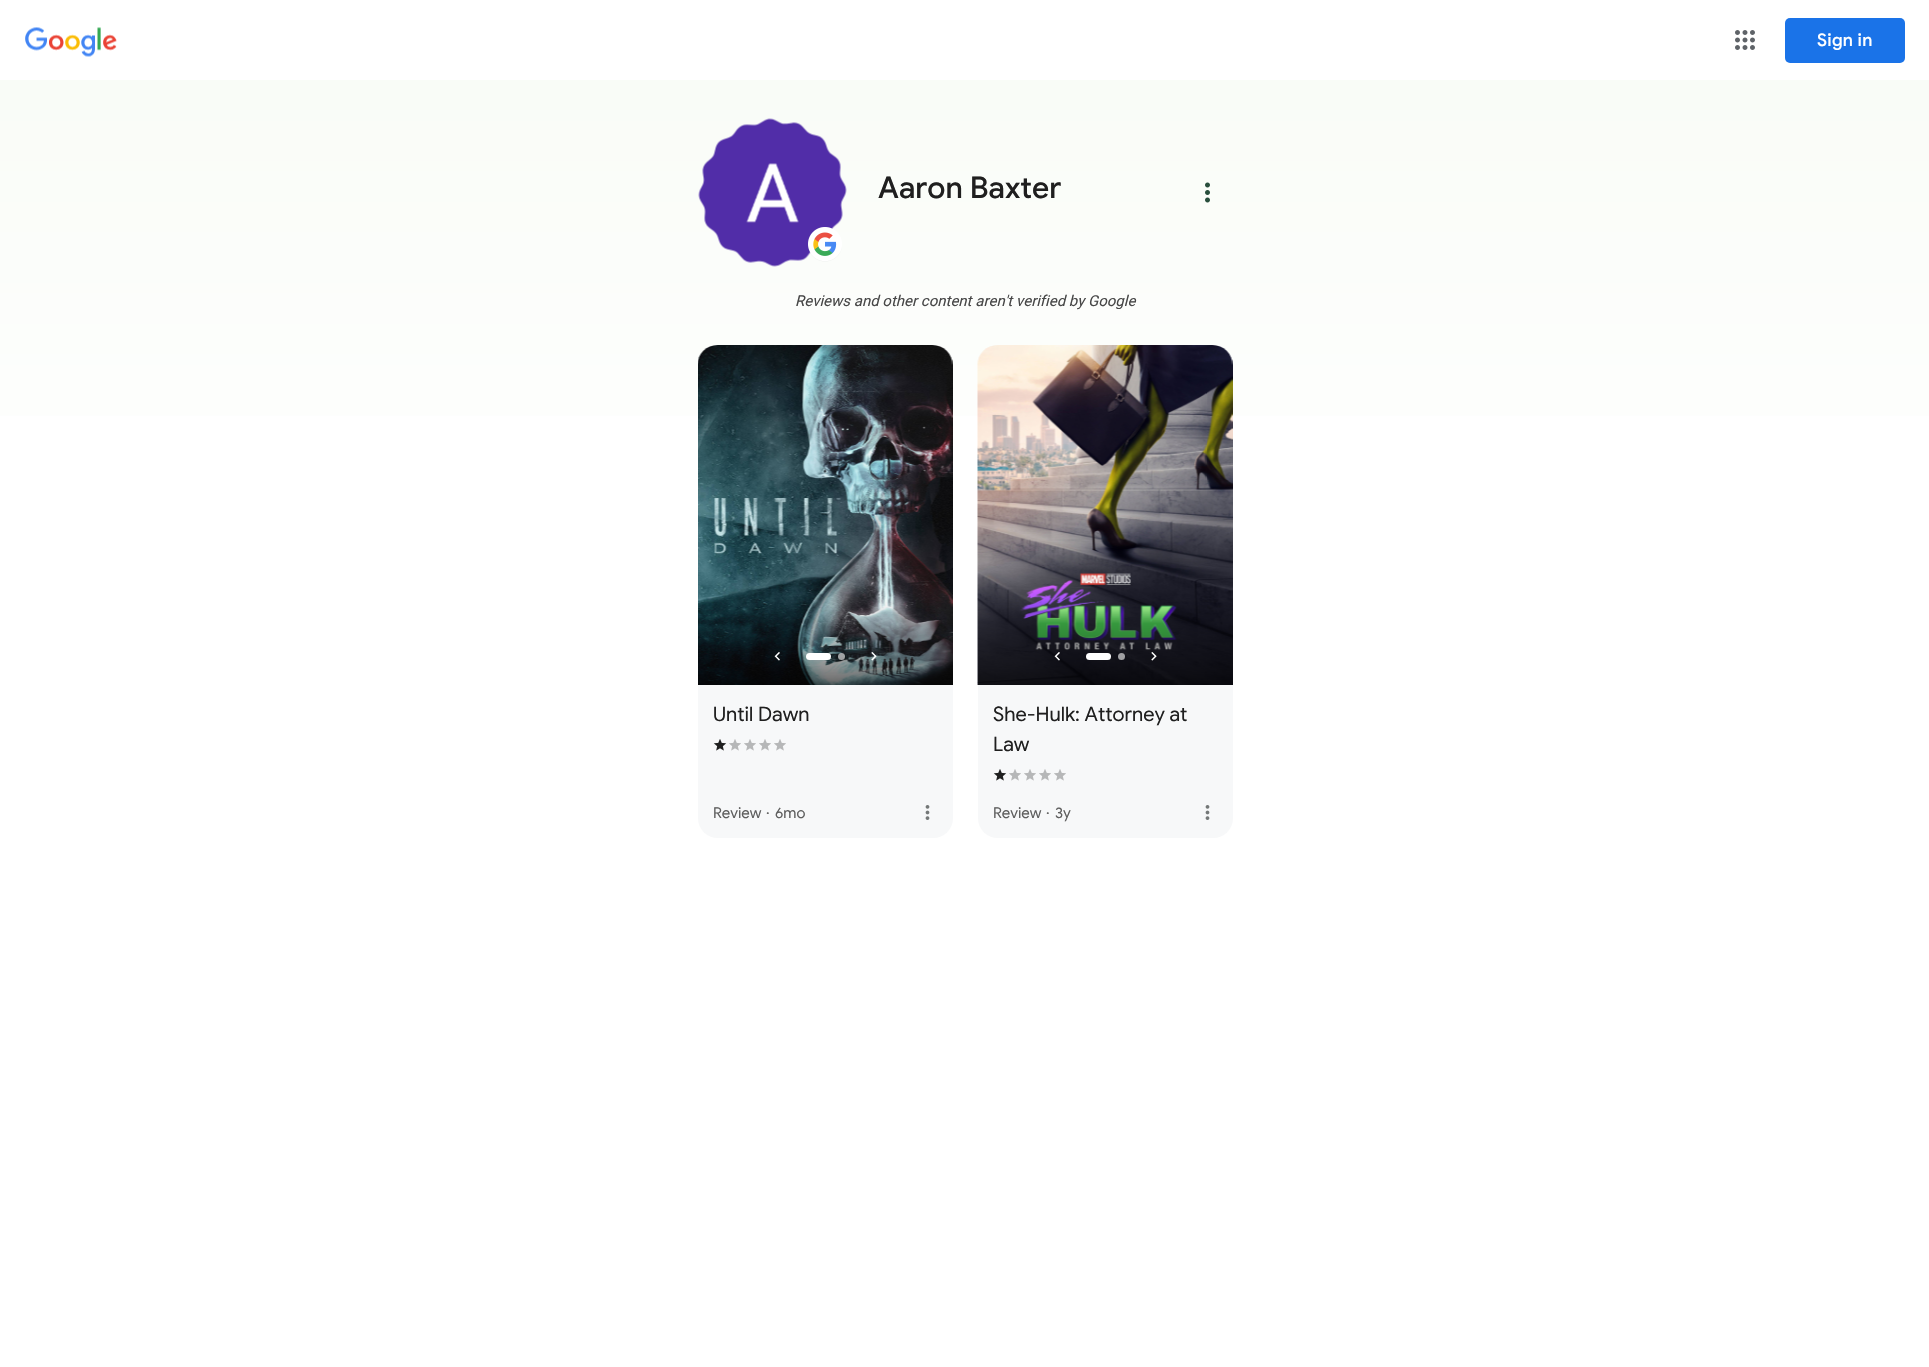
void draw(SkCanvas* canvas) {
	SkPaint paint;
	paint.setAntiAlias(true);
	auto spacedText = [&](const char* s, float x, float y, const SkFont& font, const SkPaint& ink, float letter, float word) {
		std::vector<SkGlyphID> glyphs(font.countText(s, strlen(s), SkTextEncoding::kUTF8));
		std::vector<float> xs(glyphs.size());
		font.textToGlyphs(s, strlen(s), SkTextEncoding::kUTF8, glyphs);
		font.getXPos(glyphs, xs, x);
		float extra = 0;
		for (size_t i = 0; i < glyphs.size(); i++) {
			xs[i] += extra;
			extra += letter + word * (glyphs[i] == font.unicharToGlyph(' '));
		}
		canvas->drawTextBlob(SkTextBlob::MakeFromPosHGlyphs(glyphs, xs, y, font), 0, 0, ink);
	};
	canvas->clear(0xffffffff);
	canvas->drawImageRect(SkImages::DeferredFromEncodedData(SkData::MakeFromFileName("img1.png")), SkRect::MakeXYWH(25, 27, 92, 30), SkSamplingOptions());
	canvas->drawImageRect(SkImages::DeferredFromEncodedData(SkData::MakeFromFileName("img2.png")), SkRect::MakeXYWH(1735, 30, 20, 20), SkSamplingOptions());
	paint.setColor(0xff1a73e8);
	canvas->drawRoundRect(SkRect::MakeXYWH(1785, 18, 120, 45), 5, 5, paint);
	SkFont f1(fontMgr->matchFamilyStyle("Google Sans", SkFontStyle(500, SkFontStyle::kNormal_Width, SkFontStyle::kUpright_Slant)), 17.5);
	f1.setSubpixel(true);
	paint.setColor(0xffffffff);
	spacedText("Sign in", 1817, 46, f1, paint, 0.25, 0);
	{
		const SkColor colors[] = {0xfff9fcf7, 0xffffffff};
		const float stops[] = {0, 1};
		const SkPoint ends[] = {{965, 80}, {965, 568}};
		paint.setShader(SkGradientShader::MakeLinear(ends, colors, stops, 2, SkTileMode::kClamp));
		paint.setAlpha(255);
	}
	canvas->drawRect(SkRect::MakeXYWH(0, 80, 1929, 336), paint);
	canvas->drawImageRect(SkImages::DeferredFromEncodedData(SkData::MakeFromFileName("img3.png")), SkRect::MakeXYWH(698, 118, 149, 149), SkSamplingOptions());
	canvas->drawImageRect(SkImages::DeferredFromEncodedData(SkData::MakeFromFileName("img4.png")), SkRect::MakeXYWH(808, 227, 34, 35), SkSamplingOptions());
	SkFont f2(fontMgr->matchFamilyStyle("Google Sans", SkFontStyle(500, SkFontStyle::kNormal_Width, SkFontStyle::kUpright_Slant)), 30);
	f2.setSubpixel(true);
	paint.setShader(nullptr);
	paint.setColor(0xff1f1f1f);
	canvas->drawString("Aaron Baxter", 878, 198, f2, paint);
	canvas->drawImageRect(SkImages::DeferredFromEncodedData(SkData::MakeFromFileName("img5.png")), SkRect::MakeXYWH(1205, 182, 5, 21), SkSamplingOptions());
	SkFont f3(fontMgr->matchFamilyStyle("Roboto", SkFontStyle::Italic()), 15);
	f3.setSubpixel(true);
	paint.setColor(0xff474747);
	canvas->drawString("Reviews and other content aren't verified by Google", 795, 306, f3, paint);
	paint.setColor(0xfff7f8f9);
	canvas->drawRoundRect(SkRect::MakeXYWH(698, 345, 255, 493), 20, 20, paint);
	canvas->drawImageRect(SkImages::DeferredFromEncodedData(SkData::MakeFromFileName("img6.png")), SkRect::MakeXYWH(698, 345, 255, 340), SkSamplingOptions());
	canvas->drawImageRect(SkImages::DeferredFromEncodedData(SkData::MakeFromFileName("img7.png")), SkRect::MakeXYWH(774, 652, 6, 9), SkSamplingOptions());
	paint.setColor(0xffffffff);
	canvas->drawRoundRect(SkRect::MakeXYWH(806, 653, 25, 7), 3.5, 3.5, paint);
	paint.setColor(0x99ffffff);
	canvas->drawCircle(841.5, 656.5, 3.5, paint);
	canvas->drawImageRect(SkImages::DeferredFromEncodedData(SkData::MakeFromFileName("img8.png")), SkRect::MakeXYWH(871, 652, 6, 9), SkSamplingOptions());
	SkFont f4(fontMgr->matchFamilyStyle("Google Sans", SkFontStyle::Normal()), 20);
	f4.setSubpixel(true);
	paint.setColor(0xff1f1f1f);
	canvas->drawString("Until Dawn", 713, 721, f4, paint);
	canvas->drawImageRect(SkImages::DeferredFromEncodedData(SkData::MakeFromFileName("img9.png")), SkRect::MakeXYWH(713, 739, 14, 12), SkSamplingOptions());
	canvas->drawImageRect(SkImages::DeferredFromEncodedData(SkData::MakeFromFileName("img10.png")), SkRect::MakeXYWH(729, 739, 12, 12), SkSamplingOptions());
	canvas->drawImageRect(SkImages::DeferredFromEncodedData(SkData::MakeFromFileName("img10.png")), SkRect::MakeXYWH(744, 739, 12, 12), SkSamplingOptions());
	canvas->drawImageRect(SkImages::DeferredFromEncodedData(SkData::MakeFromFileName("img10.png")), SkRect::MakeXYWH(759, 739, 12, 12), SkSamplingOptions());
	canvas->drawImageRect(SkImages::DeferredFromEncodedData(SkData::MakeFromFileName("img10.png")), SkRect::MakeXYWH(774, 739, 12, 12), SkSamplingOptions());
	SkFont f5(fontMgr->matchFamilyStyle("Google Sans", SkFontStyle::Normal()), 15);
	f5.setSubpixel(true);
	paint.setColor(0xff5e5e5e);
	canvas->drawString("Review", 713, 818, f5, paint);
	canvas->drawString("·", 766, 818, f5, paint);
	canvas->drawString("6mo", 775, 818, f5, paint);
	canvas->drawImageRect(SkImages::DeferredFromEncodedData(SkData::MakeFromFileName("img11.png")), SkRect::MakeXYWH(925, 805, 5, 15), SkSamplingOptions());
	paint.setColor(0xfff7f8f9);
	canvas->drawRoundRect(SkRect::MakeXYWH(978, 345, 255, 493), 20, 20, paint);
	canvas->drawImageRect(SkImages::DeferredFromEncodedData(SkData::MakeFromFileName("img12.png")), SkRect::MakeXYWH(977, 345, 256, 340), SkSamplingOptions());
	canvas->drawImageRect(SkImages::DeferredFromEncodedData(SkData::MakeFromFileName("img13.png")), SkRect::MakeXYWH(1054, 652, 6, 9), SkSamplingOptions());
	paint.setColor(0xffffffff);
	canvas->drawRoundRect(SkRect::MakeXYWH(1086, 653, 25, 7), 3.5, 3.5, paint);
	paint.setColor(0x99ffffff);
	canvas->drawCircle(1121.5, 656.5, 3.5, paint);
	canvas->drawImageRect(SkImages::DeferredFromEncodedData(SkData::MakeFromFileName("img14.png")), SkRect::MakeXYWH(1151, 652, 6, 9), SkSamplingOptions());
	paint.setColor(0xff1f1f1f);
	canvas->drawString("She-Hulk: Attorney at", 993, 721, f4, paint);
	canvas->drawString("Law", 993, 751, f4, paint);
	canvas->drawImageRect(SkImages::DeferredFromEncodedData(SkData::MakeFromFileName("img9.png")), SkRect::MakeXYWH(993, 769, 14, 12), SkSamplingOptions());
	canvas->drawImageRect(SkImages::DeferredFromEncodedData(SkData::MakeFromFileName("img10.png")), SkRect::MakeXYWH(1009, 769, 12, 12), SkSamplingOptions());
	canvas->drawImageRect(SkImages::DeferredFromEncodedData(SkData::MakeFromFileName("img10.png")), SkRect::MakeXYWH(1024, 769, 12, 12), SkSamplingOptions());
	canvas->drawImageRect(SkImages::DeferredFromEncodedData(SkData::MakeFromFileName("img10.png")), SkRect::MakeXYWH(1039, 769, 12, 12), SkSamplingOptions());
	canvas->drawImageRect(SkImages::DeferredFromEncodedData(SkData::MakeFromFileName("img10.png")), SkRect::MakeXYWH(1054, 769, 12, 12), SkSamplingOptions());
	paint.setColor(0xff5e5e5e);
	canvas->drawString("Review", 993, 818, f5, paint);
	canvas->drawString("·", 1046, 818, f5, paint);
	canvas->drawString("3y", 1055, 818, f5, paint);
	canvas->drawImageRect(SkImages::DeferredFromEncodedData(SkData::MakeFromFileName("img11.png")), SkRect::MakeXYWH(1205, 805, 5, 15), SkSamplingOptions());
}
